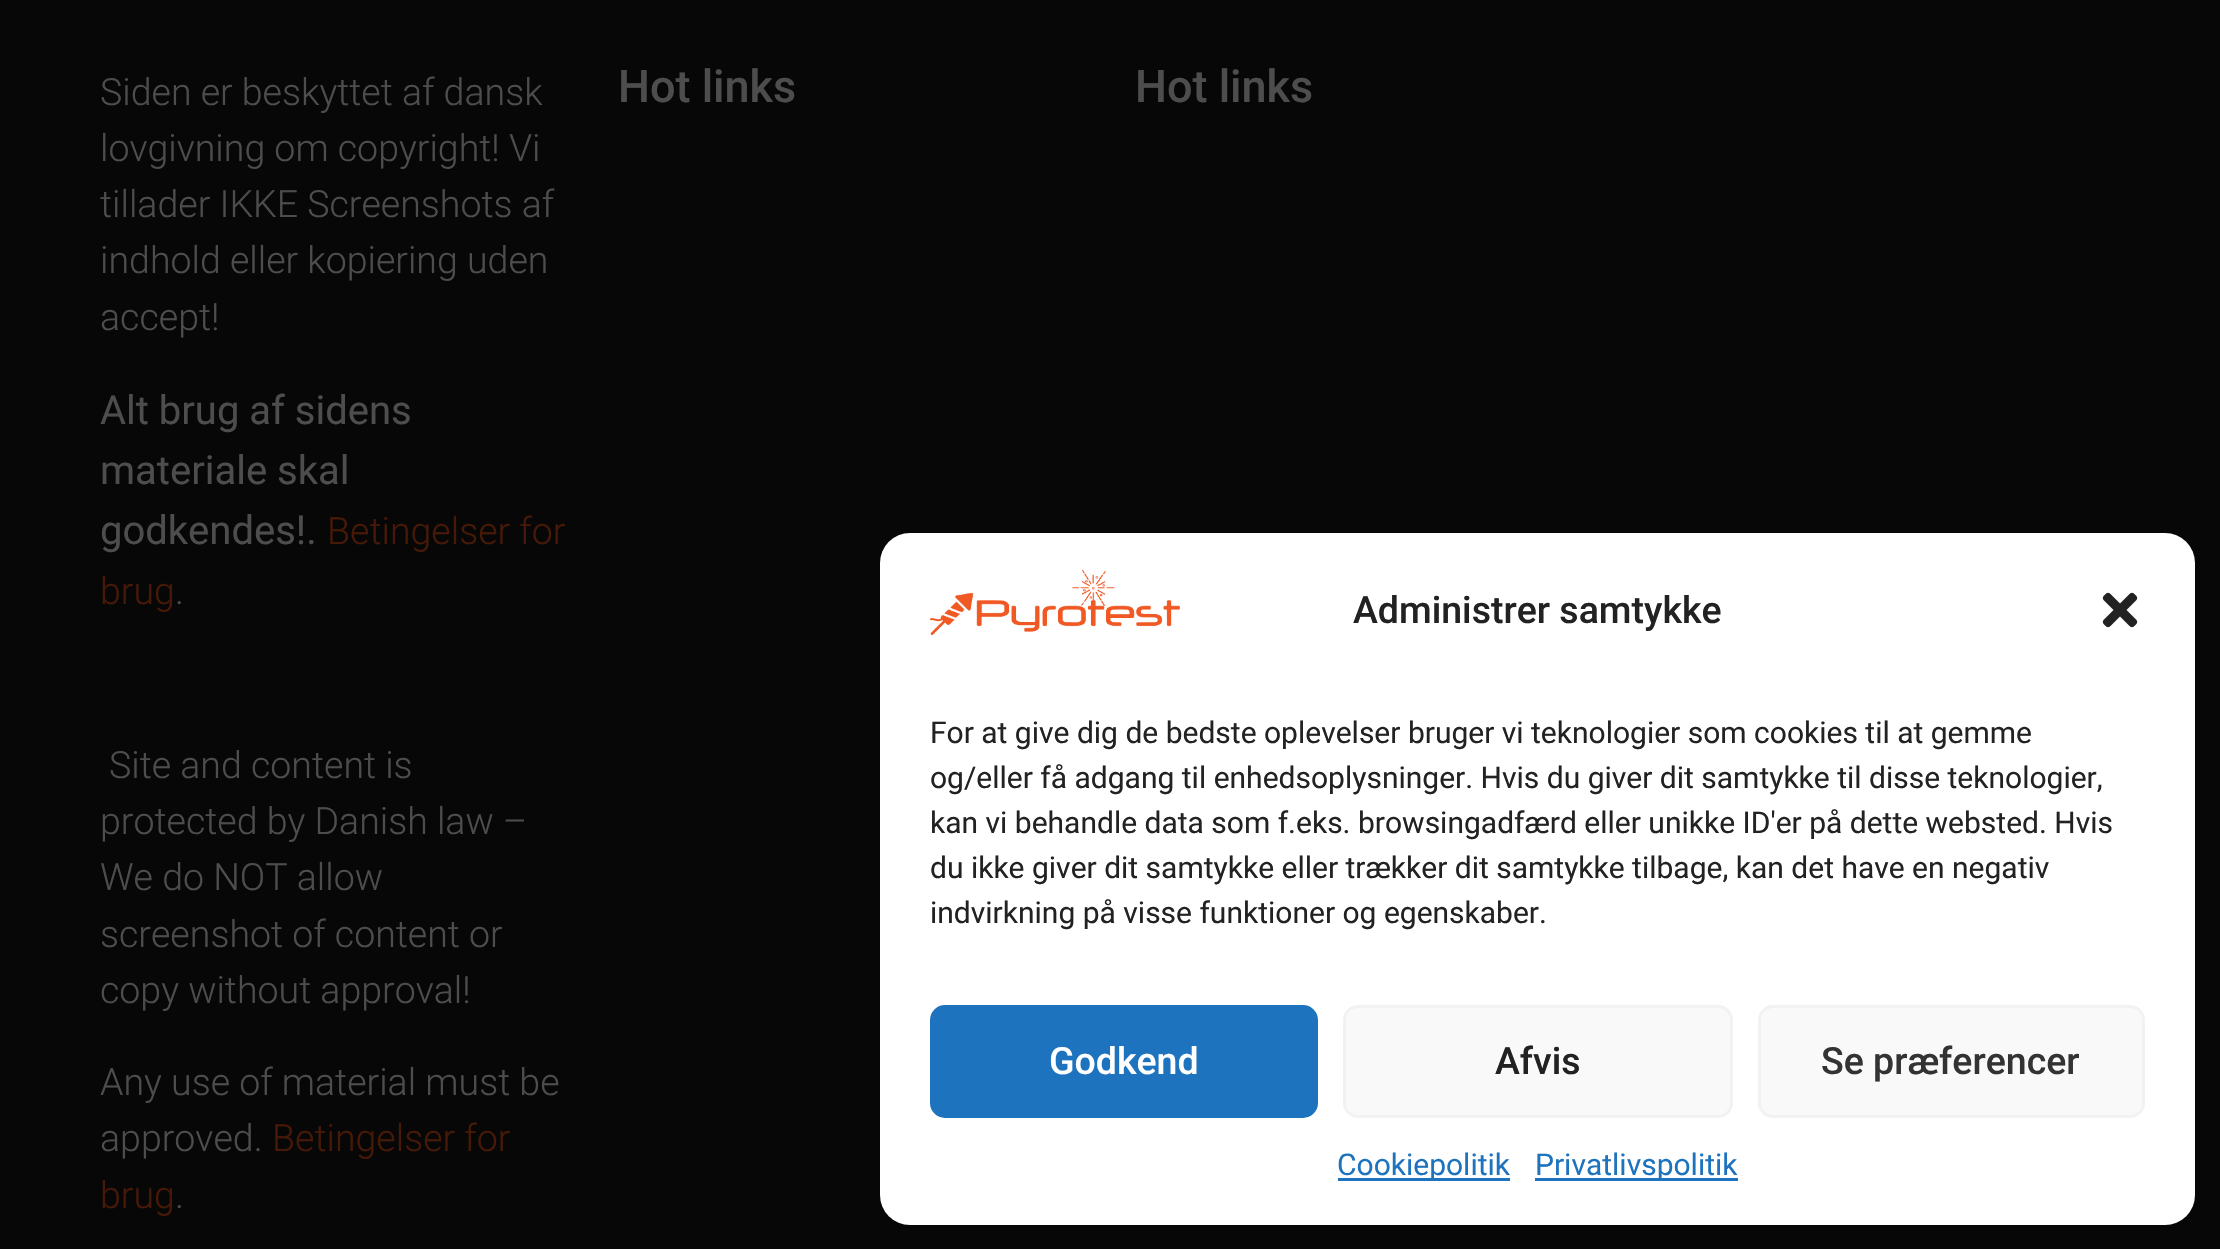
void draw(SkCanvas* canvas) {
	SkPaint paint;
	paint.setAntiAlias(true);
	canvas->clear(0xff070707);
	SkFont f1(fontMgr->matchFamilyStyle("Roboto", SkFontStyle(300, SkFontStyle::kNormal_Width, SkFontStyle::kUpright_Slant)), 37.5);
	f1.setSubpixel(true);
	paint.setColor(0xff4d4d4d);
	canvas->drawString("Siden er beskyttet af dansk", 100, 105, f1, paint);
	canvas->drawString("lovgivning om copyright! Vi", 100, 161, f1, paint);
	canvas->drawString("tillader IKKE Screenshots af", 100, 217, f1, paint);
	canvas->drawString("indhold eller kopiering uden", 100, 273, f1, paint);
	canvas->drawString("accept!", 100, 330, f1, paint);
	SkFont f2(fontMgr->matchFamilyStyle("Roboto", SkFontStyle::Normal()), 40);
	f2.setSubpixel(true);
	canvas->drawString("Alt brug af sidens", 100, 424, f2, paint);
	canvas->drawString("materiale skal", 100, 484, f2, paint);
	canvas->drawString("godkendes!.", 100, 544, f2, paint);
	paint.setColor(0xff471906);
	canvas->drawString("Betingelser for", 327, 544, f1, paint);
	canvas->drawString("brug", 100, 604, f1, paint);
	paint.setColor(0xff4d4d4d);
	canvas->drawString(".", 175, 604, f1, paint);
	canvas->drawString("Site and content is", 109, 778, f1, paint);
	canvas->drawString("protected by Danish law –", 100, 834, f1, paint);
	canvas->drawString("We do NOT allow", 100, 890, f1, paint);
	canvas->drawString("screenshot of content or", 100, 947, f1, paint);
	canvas->drawString("copy without approval!", 100, 1003, f1, paint);
	canvas->drawString("Any use of material must be", 100, 1095, f1, paint);
	canvas->drawString("approved.", 100, 1151, f1, paint);
	paint.setColor(0xff471906);
	canvas->drawString("Betingelser for", 272, 1151, f1, paint);
	canvas->drawString("brug", 100, 1208, f1, paint);
	paint.setColor(0xff4d4d4d);
	canvas->drawString(".", 175, 1208, f1, paint);
	SkFont f3(fontMgr->matchFamilyStyle("Roboto", SkFontStyle(500, SkFontStyle::kNormal_Width, SkFontStyle::kUpright_Slant)), 45);
	f3.setSubpixel(true);
	canvas->drawString("Hot links", 618, 102, f3, paint);
	canvas->drawString("Hot links", 1135, 102, f3, paint);
	paint.setColor(0xffffffff);
	canvas->drawRoundRect(SkRect::MakeXYWH(880, 533, 1315, 692), 30, 30, paint);
	canvas->drawImageRect(SkImages::DeferredFromEncodedData(SkData::MakeFromFileName("img1.png")), SkRect::MakeXYWH(930, 569, 250, 66), SkSamplingOptions());
	SkFont f4(fontMgr->matchFamilyStyle("Roboto", SkFontStyle(500, SkFontStyle::kNormal_Width, SkFontStyle::kUpright_Slant)), 37.5);
	f4.setSubpixel(true);
	paint.setColor(0xff222222);
	canvas->drawString("Administrer samtykke", 1353, 623, f4, paint);
	canvas->drawImageRect(SkImages::DeferredFromEncodedData(SkData::MakeFromFileName("img2.png")), SkRect::MakeXYWH(2102, 592, 36, 36), SkSamplingOptions());
	SkFont f5(fontMgr->matchFamilyStyle("Roboto", SkFontStyle::Normal()), 30);
	f5.setSubpixel(true);
	canvas->drawString("For at give dig de bedste oplevelser bruger vi teknologier som cookies til at gemme", 930, 743, f5, paint);
	canvas->drawString("og/eller få adgang til enhedsoplysninger. Hvis du giver dit samtykke til disse teknologier,", 930, 788, f5, paint);
	canvas->drawString("kan vi behandle data som f.eks. browsingadfærd eller unikke ID'er på dette websted. Hvis", 930, 833, f5, paint);
	canvas->drawString("du ikke giver dit samtykke eller trækker dit samtykke tilbage, kan det have en negativ", 930, 878, f5, paint);
	canvas->drawString("indvirkning på visse funktioner og egenskaber.", 930, 923, f5, paint);
	paint.setColor(0xff1e73be);
	canvas->drawRoundRect(SkRect::MakeXYWH(931.5, 1006.5, 385, 110), 13.5, 13.5, paint);
	paint.setStroke(true);
	paint.setStrokeWidth(3);
	canvas->drawRoundRect(SkRect::MakeXYWH(931.5, 1006.5, 385, 110), 13.5, 13.5, paint);
	paint.setStroke(false);
	paint.setColor(0xffffffff);
	canvas->drawString("Godkend", 1049, 1074, f4, paint);
	paint.setColor(0xfff9f9f9);
	canvas->drawRoundRect(SkRect::MakeXYWH(1344.5, 1006.5, 387, 110), 13.5, 13.5, paint);
	paint.setStroke(true);
	paint.setColor(0xfff2f2f2);
	canvas->drawRoundRect(SkRect::MakeXYWH(1344.5, 1006.5, 387, 110), 13.5, 13.5, paint);
	paint.setStroke(false);
	paint.setColor(0xff222222);
	canvas->drawString("Afvis", 1495, 1074, f4, paint);
	paint.setColor(0xfff9f9f9);
	canvas->drawRoundRect(SkRect::MakeXYWH(1759.5, 1006.5, 384, 110), 13.5, 13.5, paint);
	paint.setStroke(true);
	paint.setColor(0xfff2f2f2);
	canvas->drawRoundRect(SkRect::MakeXYWH(1759.5, 1006.5, 384, 110), 13.5, 13.5, paint);
	paint.setStroke(false);
	paint.setColor(0xff333333);
	canvas->drawString("Se præferencer", 1821, 1074, f4, paint);
	paint.setColor(0xff1e73be);
	canvas->drawRect(SkRect::MakeXYWH(1338, 1178, 172, 3), paint);
	canvas->drawString("Cookiepolitik", 1337, 1175, f5, paint);
	canvas->drawRect(SkRect::MakeXYWH(1535, 1178, 203, 3), paint);
	canvas->drawString("Privatlivspolitik", 1535, 1175, f5, paint);
}
